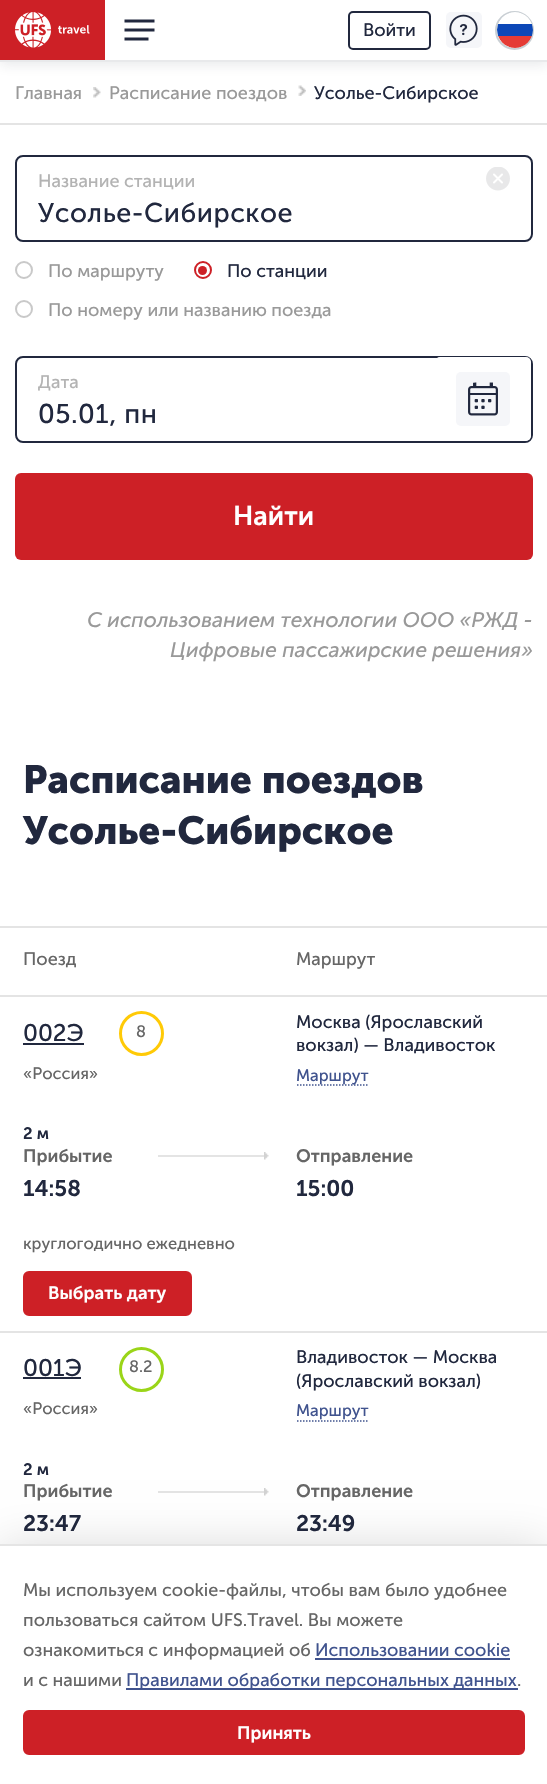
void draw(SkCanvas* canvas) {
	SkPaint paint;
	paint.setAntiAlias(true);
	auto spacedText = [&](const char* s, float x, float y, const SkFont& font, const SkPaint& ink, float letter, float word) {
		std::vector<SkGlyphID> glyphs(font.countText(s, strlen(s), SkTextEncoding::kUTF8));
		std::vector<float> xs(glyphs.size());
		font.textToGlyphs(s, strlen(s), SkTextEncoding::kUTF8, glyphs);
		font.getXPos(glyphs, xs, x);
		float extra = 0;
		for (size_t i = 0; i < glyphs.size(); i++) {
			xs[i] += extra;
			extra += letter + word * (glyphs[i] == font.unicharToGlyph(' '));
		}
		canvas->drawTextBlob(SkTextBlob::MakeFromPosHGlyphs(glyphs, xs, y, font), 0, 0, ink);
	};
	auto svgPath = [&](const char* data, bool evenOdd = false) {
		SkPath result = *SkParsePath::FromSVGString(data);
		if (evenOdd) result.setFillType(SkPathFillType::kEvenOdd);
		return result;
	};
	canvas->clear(0xffffffff);
	canvas->save();
	canvas->clipPath(svgPath("M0 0H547V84H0ZM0 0H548V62H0Z", true), true);
	paint.setColor(0x1a21283e);
	paint.setMaskFilter(SkMaskFilter::MakeBlur(kNormal_SkBlurStyle, 6));
	canvas->drawRect(SkRect::MakeXYWH(0, 3, 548, 62), paint);
	paint.setMaskFilter(nullptr);
	canvas->restore();
	canvas->drawRect(SkRect::MakeXYWH(0, 60, 547, 2), paint);
	paint.setColor(0xffcd2026);
	canvas->drawRect(SkRect::MakeXYWH(0, 0, 105, 60), paint);
	canvas->drawImageRect(SkImages::DeferredFromEncodedData(SkData::MakeFromFileName("img1.png")), SkRect::MakeXYWH(15, 12, 75, 36), SkSamplingOptions());
	paint.setStroke(true);
	paint.setStrokeWidth(3);
	paint.setColor(0xff21283e);
	canvas->drawPath(svgPath("M124.5 21H154.5M124.5 30H154.5M124.5 39H148.5"), paint);
	paint.setStrokeWidth(2);
	canvas->drawRoundRect(SkRect::MakeXYWH(349, 12, 81, 37), 4, 4, paint);
	SkFont f1(fontMgr->matchFamilyStyle("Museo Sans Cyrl", SkFontStyle::Normal()), 18);
	f1.setSubpixel(true);
	paint.setStroke(false);
	canvas->drawString("Войти", 363, 36, f1, paint);
	paint.setColor(0xfff5f6f9);
	canvas->drawRoundRect(SkRect::MakeXYWH(446, 12, 36, 36), 5, 5, paint);
	canvas->drawImageRect(SkImages::DeferredFromEncodedData(SkData::MakeFromFileName("img2.png")), SkRect::MakeXYWH(449, 14, 29, 32), SkSamplingOptions());
	paint.setStroke(true);
	paint.setColor(0xffc9cfd4);
	canvas->drawCircle(514.5, 30.5, 18.5, paint);
	canvas->save();
	canvas->clipPath(svgPath("M515 12C525 12 533 20 533 30C533 40 525 48 515 48C505 48 497 40 497 30C497 20 505 12 515 12Z"), true);
	canvas->clipPath(svgPath("M515 12C525 12 533 20 533 30C533 40 525 48 515 48C505 48 497 40 497 30C497 20 505 12 515 12Z"), true);
	paint.setStroke(false);
	paint.setColor(0xffffffff);
	canvas->drawRect(SkRect::MakeXYWH(498, 12, 34, 12), paint);
	paint.setColor(0xff0c47b7);
	canvas->drawRect(SkRect::MakeXYWH(497, 24, 36, 12), paint);
	paint.setColor(0xffe53b35);
	canvas->drawRect(SkRect::MakeXYWH(498, 36, 34, 12), paint);
	canvas->restore();
	paint.setColor(0xffe4e4e4);
	canvas->drawRect(SkRect::MakeXYWH(0, 123, 547, 2), paint);
	paint.setColor(0xff999999);
	canvas->drawString("Главная", 15, 99, f1, paint);
	canvas->drawImageRect(SkImages::DeferredFromEncodedData(SkData::MakeFromFileName("img3.png")), SkRect::MakeXYWH(93, 87, 8, 11), SkSamplingOptions());
	canvas->drawString("Расписание поездов", 109, 99, f1, paint);
	canvas->drawImageRect(SkImages::DeferredFromEncodedData(SkData::MakeFromFileName("img4.png")), SkRect::MakeXYWH(298, 85, 8, 11), SkSamplingOptions());
	paint.setColor(0xff21283e);
	canvas->drawString("Усолье-Сибирское", 314, 99, f1, paint);
	paint.setStroke(true);
	canvas->drawRoundRect(SkRect::MakeXYWH(16, 156, 516, 85), 7, 7, paint);
	paint.setStroke(false);
	paint.setColor(0xffb3b3b3);
	canvas->drawString("Название станции", 38, 187, f1, paint);
	canvas->drawImageRect(SkImages::DeferredFromEncodedData(SkData::MakeFromFileName("img5.png")), SkRect::MakeXYWH(486, 167, 24, 24), SkSamplingOptions());
	SkFont f2(fontMgr->matchFamilyStyle("Museo Sans Cyrl", SkFontStyle::Normal()), 27);
	f2.setSubpixel(true);
	paint.setColor(0xff21283e);
	spacedText("Усолье-Сибирское", 38, 222, f2, paint, 0.5, 0);
	paint.setStroke(true);
	paint.setColor(0xffc9c9c9);
	canvas->drawCircle(24, 270, 8, paint);
	paint.setStroke(false);
	paint.setColor(0xff999999);
	canvas->drawString("По маршруту", 48, 277, f1, paint);
	paint.setStroke(true);
	paint.setColor(0xffcd2026);
	canvas->drawCircle(203, 270, 8, paint);
	paint.setStroke(false);
	canvas->drawCircle(202.5, 270.5, 4.5, paint);
	paint.setColor(0xff21283e);
	canvas->drawString("По станции", 227, 277, f1, paint);
	paint.setStroke(true);
	paint.setColor(0xffc9c9c9);
	canvas->drawCircle(24, 309, 8, paint);
	paint.setStroke(false);
	paint.setColor(0xff999999);
	canvas->drawString("По номеру или названию поезда", 48, 316, f1, paint);
	paint.setStroke(true);
	paint.setColor(0xff21283e);
	canvas->drawRoundRect(SkRect::MakeXYWH(16, 357, 516, 85), 7, 7, paint);
	paint.setStroke(false);
	paint.setColor(0xffb3b3b3);
	canvas->drawString("Дата", 38, 388, f1, paint);
	paint.setColor(0xffffffff);
	canvas->drawRoundRect(SkRect::MakeXYWH(435, 357, 96, 84), 5, 5, paint);
	paint.setColor(0xfff5f6f9);
	canvas->drawRoundRect(SkRect::MakeXYWH(456, 372, 54, 54), 5, 5, paint);
	canvas->drawImageRect(SkImages::DeferredFromEncodedData(SkData::MakeFromFileName("img6.png")), SkRect::MakeXYWH(468, 382, 30, 34), SkSamplingOptions());
	paint.setColor(0xff21283e);
	spacedText("05.01, пн", 38, 423, f2, paint, 0.5, 0);
	paint.setColor(0xffcd2026);
	canvas->drawRoundRect(SkRect::MakeXYWH(15, 473, 518, 87), 6, 6, paint);
	SkFont f3(fontMgr->matchFamilyStyle("Museo Sans Cyrl", SkFontStyle(600, SkFontStyle::kNormal_Width, SkFontStyle::kUpright_Slant)), 27);
	f3.setSubpixel(true);
	paint.setColor(0xffffffff);
	canvas->drawString("Найти", 233, 525, f3, paint);
	SkFont f4(fontMgr->matchFamilyStyle("Museo Sans Cyrl", SkFontStyle::Italic()), 21);
	f4.setSubpixel(true);
	paint.setColor(0xff999999);
	canvas->drawString("С использованием технологии ООО «РЖД -", 87, 627, f4, paint);
	canvas->drawString("Цифровые пассажирские решения»", 170, 657, f4, paint);
	SkFont f5(fontMgr->matchFamilyStyle("Museo Sans Cyrl", SkFontStyle::Bold()), 39);
	f5.setSubpixel(true);
	paint.setColor(0xff21283e);
	canvas->drawString("Расписание поездов", 23, 793, f5, paint);
	canvas->drawString("Усолье-Сибирское", 23, 844, f5, paint);
	paint.setColor(0xffe4e4e4);
	canvas->drawRect(SkRect::MakeXYWH(0, 995, 547, 2), paint);
	canvas->drawRect(SkRect::MakeXYWH(0, 926, 547, 2), paint);
	paint.setColor(0xff666666);
	canvas->drawString("Поезд", 23, 965, f1, paint);
	canvas->drawString("Маршрут", 296, 965, f1, paint);
	paint.setColor(0xffe4e4e4);
	canvas->drawRect(SkRect::MakeXYWH(0, 1331, 547, 2), paint);
	SkFont f6(fontMgr->matchFamilyStyle("Museo Sans Cyrl", SkFontStyle::Normal()), 24);
	f6.setSubpixel(true);
	paint.setColor(0xff21283e);
	canvas->drawString("002Э", 23, 1041, f6, paint);
	canvas->drawRect(SkRect::MakeXYWH(23, 1043, 61, 2), paint);
	paint.setStroke(true);
	paint.setStrokeWidth(3);
	paint.setColor(0xffffca06);
	canvas->drawCircle(141.5, 1033.5, 21, paint);
	SkFont f7(fontMgr->matchFamilyStyle("Museo Sans Cyrl", SkFontStyle::Normal()), 16.5);
	f7.setSubpixel(true);
	paint.setStroke(false);
	paint.setColor(0xff666666);
	canvas->drawString("8", 136, 1037, f7, paint);
	canvas->drawString("«Россия»", 23, 1079, f7, paint);
	paint.setColor(0xff21283e);
	canvas->drawString("Москва (Ярославский", 296, 1028, f1, paint);
	canvas->drawString("вокзал) — Владивосток", 296, 1051, f1, paint);
	paint.setStroke(true);
	paint.setStrokeWidth(1.5);
	paint.setColor(0xff40538e);
	paint.setPathEffect(SkDashPathEffect::Make({{1.5f, 1.5f}}, 0));
	canvas->drawPath(svgPath("M297 1085H369"), paint);
	paint.setPathEffect(nullptr);
	paint.setStroke(false);
	canvas->drawString("Маршрут", 296, 1081, f7, paint);
	SkFont f8(fontMgr->matchFamilyStyle("Museo Sans Cyrl", SkFontStyle(600, SkFontStyle::kNormal_Width, SkFontStyle::kUpright_Slant)), 16.5);
	f8.setSubpixel(true);
	paint.setColor(0xff21283e);
	canvas->drawString("2 м", 23, 1139, f8, paint);
	SkFont f9(fontMgr->matchFamilyStyle("Museo Sans Cyrl", SkFontStyle(600, SkFontStyle::kNormal_Width, SkFontStyle::kUpright_Slant)), 18);
	f9.setSubpixel(true);
	paint.setColor(0xff666666);
	canvas->drawString("Прибытие", 23, 1162, f9, paint);
	paint.setColor(0xffe4e4e4);
	canvas->drawRect(SkRect::MakeXYWH(158, 1155, 109, 2), paint);
	canvas->drawImageRect(SkImages::DeferredFromEncodedData(SkData::MakeFromFileName("img7.png")), SkRect::MakeXYWH(264, 1152, 5, 8), SkSamplingOptions());
	SkFont f10(fontMgr->matchFamilyStyle("Museo Sans Cyrl", SkFontStyle(600, SkFontStyle::kNormal_Width, SkFontStyle::kUpright_Slant)), 22.5);
	f10.setSubpixel(true);
	paint.setColor(0xff21283e);
	canvas->drawString("14:58", 23, 1196, f10, paint);
	paint.setColor(0xff666666);
	canvas->drawString("Отправление", 296, 1162, f9, paint);
	paint.setColor(0xff21283e);
	canvas->drawString("15:00", 296, 1196, f10, paint);
	paint.setColor(0xff666666);
	canvas->drawString("круглогодично ежедневно", 23, 1249, f7, paint);
	paint.setColor(0xffcd2026);
	canvas->drawRoundRect(SkRect::MakeXYWH(24.5, 1272.5, 166, 42), 4.5, 4.5, paint);
	paint.setStroke(true);
	paint.setStrokeWidth(3);
	canvas->drawRoundRect(SkRect::MakeXYWH(24.5, 1272.5, 166, 42), 4.5, 4.5, paint);
	paint.setStroke(false);
	paint.setColor(0xffffffff);
	canvas->drawString("Выбрать дату", 48, 1299, f9, paint);
	paint.setColor(0xff21283e);
	canvas->drawString("001Э", 23, 1376, f6, paint);
	canvas->drawRect(SkRect::MakeXYWH(23, 1377, 58, 2), paint);
	paint.setStroke(true);
	paint.setColor(0xff9ad518);
	canvas->drawCircle(141.5, 1369.5, 21, paint);
	paint.setStroke(false);
	paint.setColor(0xff666666);
	canvas->drawString("8.2", 129, 1372, f7, paint);
	canvas->drawString("«Россия»", 23, 1414, f7, paint);
	paint.setColor(0xff21283e);
	canvas->drawString("Владивосток — Москва", 296, 1363, f1, paint);
	canvas->drawString("(Ярославский вокзал)", 296, 1387, f1, paint);
	paint.setColor(0xff40538e);
	canvas->drawString("Маршрут", 296, 1416, f7, paint);
	paint.setStroke(true);
	paint.setStrokeWidth(1.5);
	paint.setPathEffect(SkDashPathEffect::Make({{1.5f, 1.5f}}, 0));
	canvas->drawPath(svgPath("M297 1421H369"), paint);
	paint.setPathEffect(nullptr);
	paint.setStroke(false);
	paint.setColor(0xff21283e);
	canvas->drawString("2 м", 23, 1475, f8, paint);
	paint.setColor(0xff666666);
	canvas->drawString("Прибытие", 23, 1497, f9, paint);
	paint.setColor(0xffe4e4e4);
	canvas->drawRect(SkRect::MakeXYWH(158, 1491, 109, 2), paint);
	canvas->drawImageRect(SkImages::DeferredFromEncodedData(SkData::MakeFromFileName("img7.png")), SkRect::MakeXYWH(264, 1488, 5, 8), SkSamplingOptions());
	paint.setColor(0xff21283e);
	canvas->drawString("23:47", 23, 1531, f10, paint);
	paint.setColor(0xff666666);
	canvas->drawString("Отправление", 296, 1497, f9, paint);
	paint.setColor(0xff21283e);
	canvas->drawString("23:49", 296, 1531, f10, paint);
	paint.setColor(0x26000000);
	paint.setMaskFilter(SkMaskFilter::MakeBlur(kNormal_SkBlurStyle, 22.5));
	canvas->drawRect(SkRect::MakeXYWH(0, 1547, 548, 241), paint);
	paint.setMaskFilter(nullptr);
	paint.setColor(0xffffffff);
	canvas->drawRect(SkRect::MakeXYWH(0, 1546, 547, 238), paint);
	paint.setColor(0xffe5e5e5);
	canvas->drawRect(SkRect::MakeXYWH(0, 1544, 547, 2), paint);
	paint.setColor(0xff666666);
	canvas->drawString("Мы используем cookie-файлы, чтобы вам было удобнее", 23, 1596, f1, paint);
	canvas->drawString("пользоваться сайтом UFS.Travel. Вы можете", 23, 1626, f1, paint);
	canvas->drawString("ознакомиться с информацией об", 23, 1656, f1, paint);
	paint.setColor(0xff40538e);
	canvas->drawString("Использовании cookie", 315, 1656, f1, paint);
	canvas->drawRect(SkRect::MakeXYWH(315, 1658, 195, 2), paint);
	paint.setColor(0xff666666);
	canvas->drawString("и с нашими", 23, 1686, f1, paint);
	paint.setColor(0xff40538e);
	canvas->drawRect(SkRect::MakeXYWH(126, 1688, 392, 2), paint);
	canvas->drawString("Правилами обработки персональных данных", 126, 1686, f1, paint);
	paint.setColor(0xff666666);
	canvas->drawString(".", 517, 1686, f1, paint);
	paint.setColor(0xffcd2026);
	canvas->drawRoundRect(SkRect::MakeXYWH(24.5, 1711.5, 499, 42), 4.5, 4.5, paint);
	paint.setStroke(true);
	paint.setStrokeWidth(3);
	canvas->drawRoundRect(SkRect::MakeXYWH(24.5, 1711.5, 499, 42), 4.5, 4.5, paint);
	paint.setStroke(false);
	paint.setColor(0xffffffff);
	canvas->drawString("Принять", 237, 1739, f9, paint);
}
